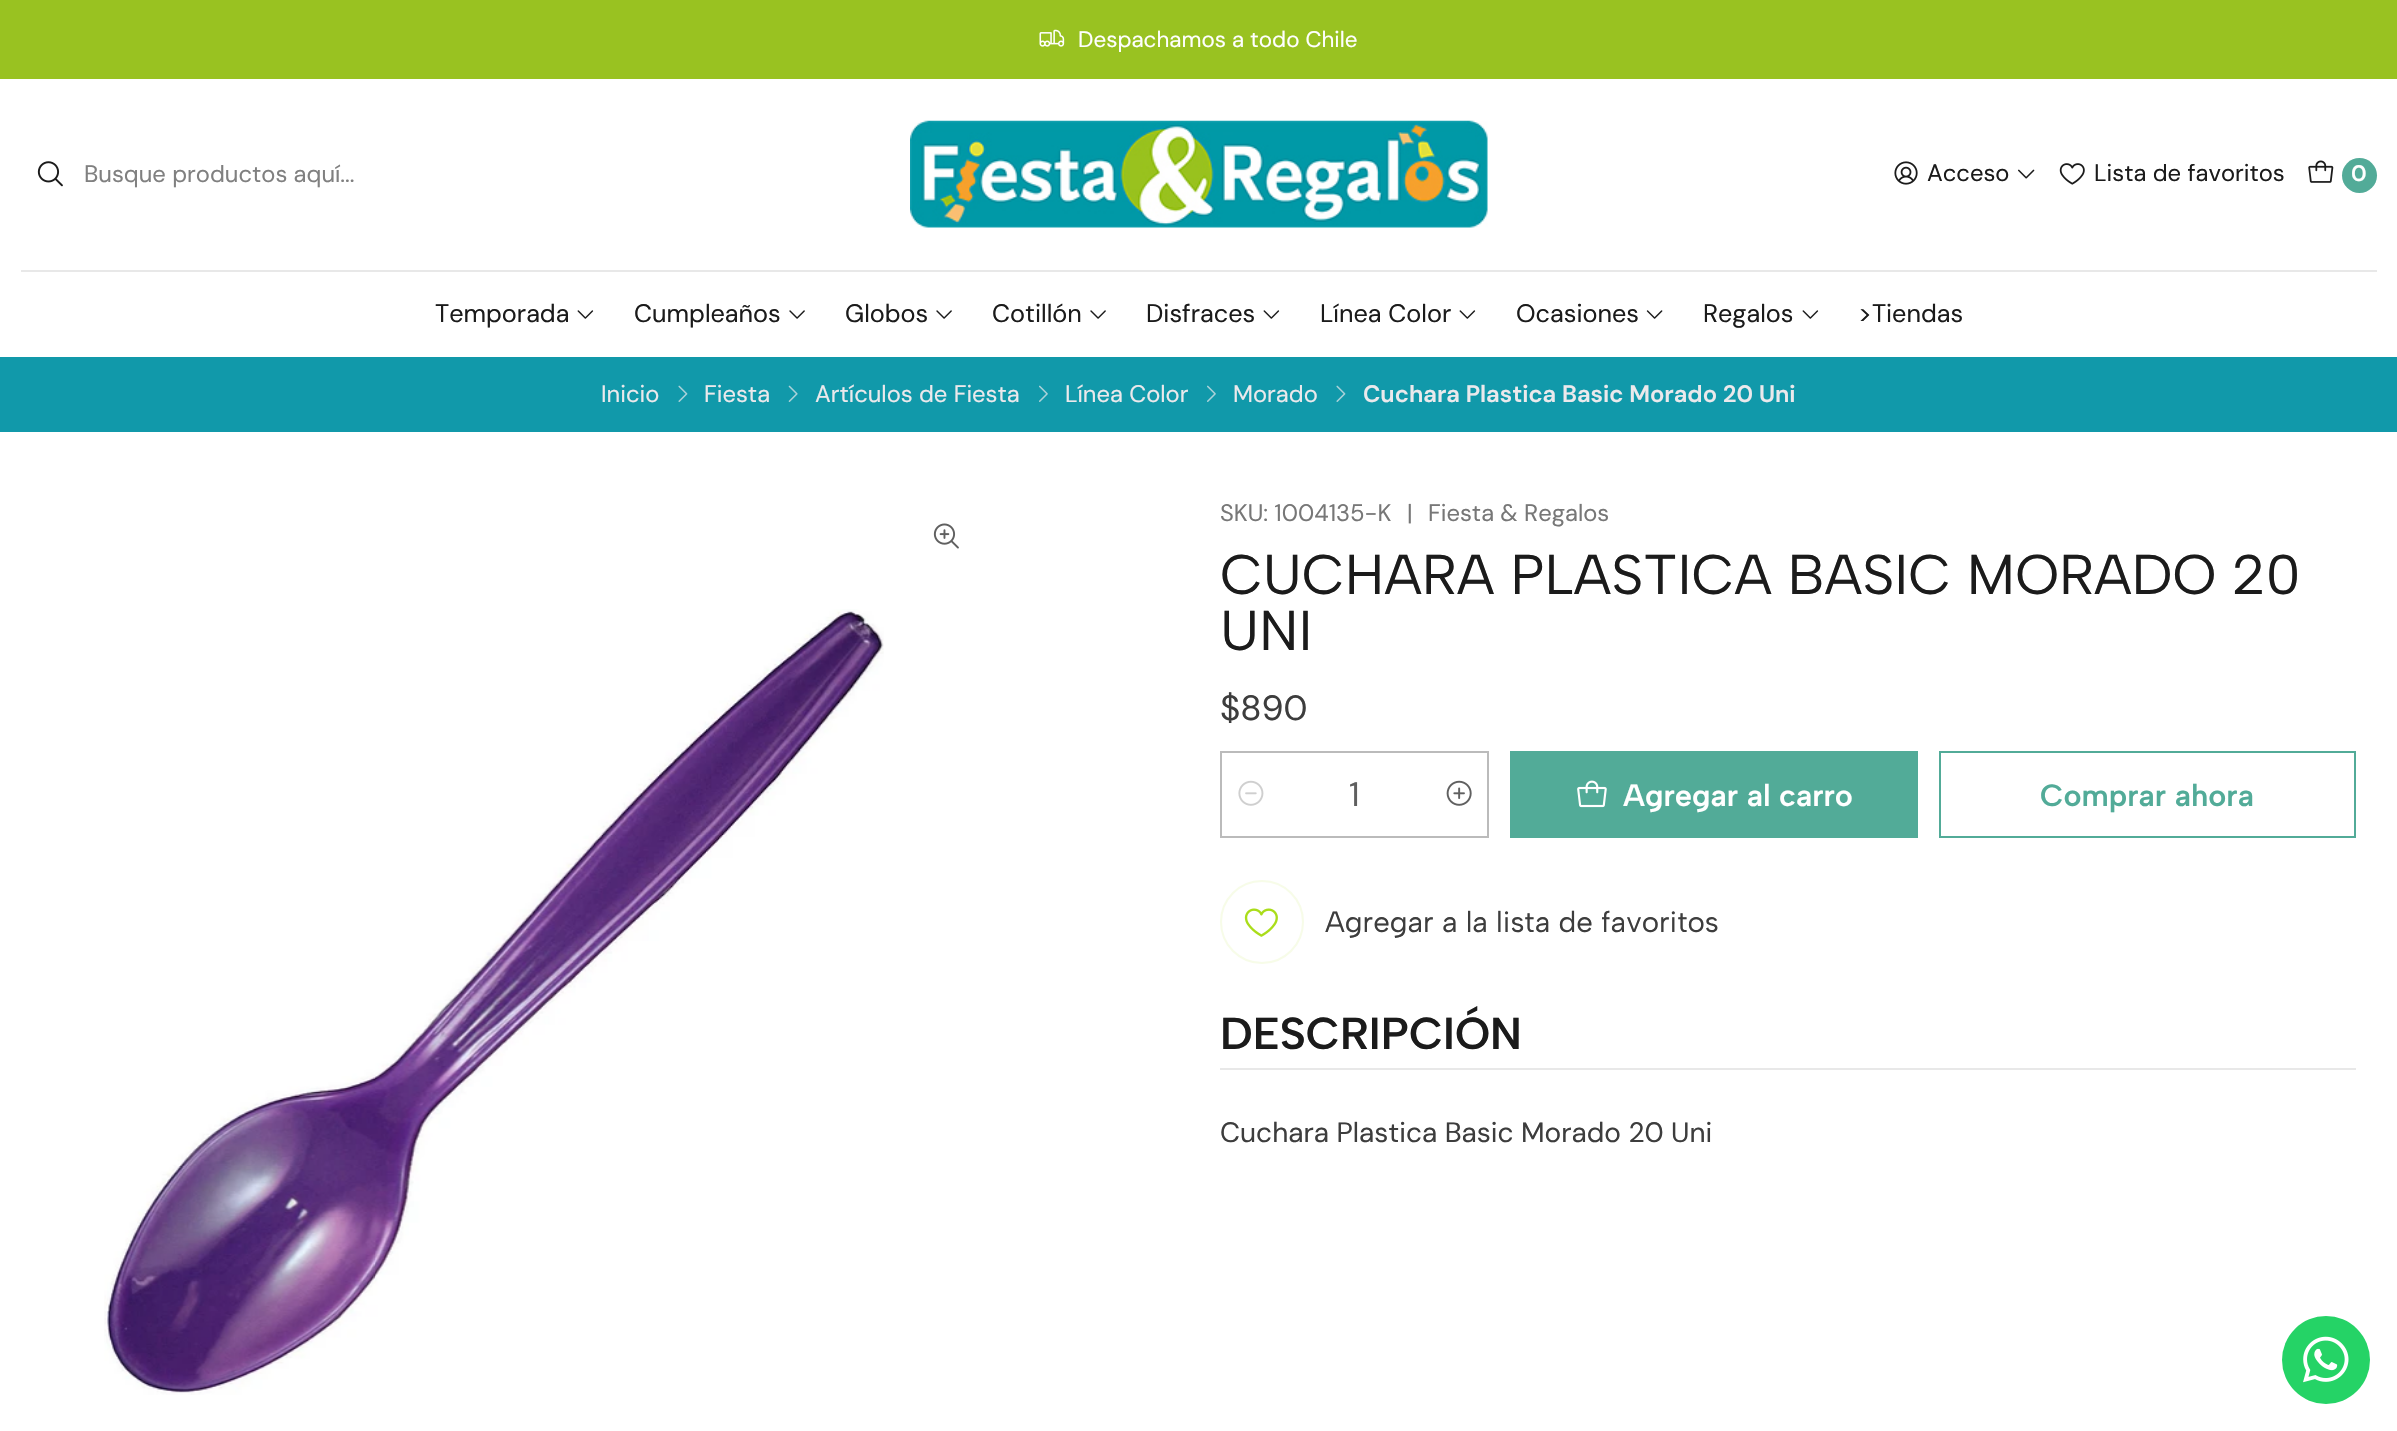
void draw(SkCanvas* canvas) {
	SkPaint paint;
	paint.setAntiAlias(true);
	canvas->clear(0xffffffff);
	paint.setColor(0xff99c221);
	canvas->drawRect(SkRect::MakeXYWH(0, 0, 2397, 79), paint);
	canvas->drawImageRect(SkImages::DeferredFromEncodedData(SkData::MakeFromFileName("img1.png")), SkRect::MakeXYWH(1039, 29, 26, 18), SkSamplingOptions());
	SkFont f1(fontMgr->matchFamilyStyle("DM Sans", SkFontStyle::Normal()), 22.4);
	f1.setSubpixel(true);
	paint.setColor(0xffffffff);
	canvas->drawString("Despachamos a todo Chile", 1078, 47, f1, paint);
	canvas->drawImageRect(SkImages::DeferredFromEncodedData(SkData::MakeFromFileName("img2.png")), SkRect::MakeXYWH(37, 161, 26, 26), SkSamplingOptions());
	SkFont f2(fontMgr->matchFamilyStyle("DM Sans", SkFontStyle::Normal()), 23.75);
	f2.setSubpixel(true);
	paint.setColor(0xff808080);
	canvas->drawString("Busque productos aquí...", 84, 182, f2, paint);
	canvas->drawImageRect(SkImages::DeferredFromEncodedData(SkData::MakeFromFileName("img3.png")), SkRect::MakeXYWH(910, 120, 578, 108), SkSamplingOptions());
	canvas->drawImageRect(SkImages::DeferredFromEncodedData(SkData::MakeFromFileName("img4.png")), SkRect::MakeXYWH(1894, 161, 24, 24), SkSamplingOptions());
	paint.setColor(0xff1b1b1b);
	canvas->drawString("Acceso", 1927, 181, f2, paint);
	canvas->drawImageRect(SkImages::DeferredFromEncodedData(SkData::MakeFromFileName("img5.png")), SkRect::MakeXYWH(2018, 169, 17, 10), SkSamplingOptions());
	canvas->drawImageRect(SkImages::DeferredFromEncodedData(SkData::MakeFromFileName("img6.png")), SkRect::MakeXYWH(2059, 163, 26, 22), SkSamplingOptions());
	canvas->drawString("Lista de favoritos", 2094, 181, f2, paint);
	canvas->drawImageRect(SkImages::DeferredFromEncodedData(SkData::MakeFromFileName("img7.png")), SkRect::MakeXYWH(2308, 160, 26, 23), SkSamplingOptions());
	paint.setColor(0xff52ab98);
	canvas->drawCircle(2359.5, 175.5, 17.5, paint);
	SkFont f3(fontMgr->matchFamilyStyle("DM Sans", SkFontStyle(600, SkFontStyle::kNormal_Width, SkFontStyle::kUpright_Slant)), 22.4);
	f3.setSubpixel(true);
	paint.setColor(0xffffffff);
	canvas->drawString("0", 2351, 181, f3, paint);
	paint.setColor(0xffe8e8e8);
	canvas->drawRect(SkRect::MakeXYWH(21, 270, 2356, 2), paint);
	SkFont f4(fontMgr->matchFamilyStyle("DM Sans", SkFontStyle::Normal()), 25.25);
	f4.setSubpixel(true);
	paint.setColor(0xff1b1b1b);
	canvas->drawString("Temporada", 435, 322, f4, paint);
	canvas->drawImageRect(SkImages::DeferredFromEncodedData(SkData::MakeFromFileName("img8.png")), SkRect::MakeXYWH(577, 310, 17, 9), SkSamplingOptions());
	canvas->drawString("Cumpleaños", 634, 322, f4, paint);
	canvas->drawImageRect(SkImages::DeferredFromEncodedData(SkData::MakeFromFileName("img9.png")), SkRect::MakeXYWH(789, 310, 16, 9), SkSamplingOptions());
	canvas->drawString("Globos", 845, 322, f4, paint);
	canvas->drawImageRect(SkImages::DeferredFromEncodedData(SkData::MakeFromFileName("img9.png")), SkRect::MakeXYWH(936, 310, 16, 9), SkSamplingOptions());
	canvas->drawString("Cotillón", 992, 322, f4, paint);
	canvas->drawImageRect(SkImages::DeferredFromEncodedData(SkData::MakeFromFileName("img9.png")), SkRect::MakeXYWH(1090, 310, 16, 9), SkSamplingOptions());
	canvas->drawString("Disfraces", 1146, 322, f4, paint);
	canvas->drawImageRect(SkImages::DeferredFromEncodedData(SkData::MakeFromFileName("img8.png")), SkRect::MakeXYWH(1263, 310, 17, 9), SkSamplingOptions());
	canvas->drawString("Línea Color", 1320, 322, f4, paint);
	canvas->drawImageRect(SkImages::DeferredFromEncodedData(SkData::MakeFromFileName("img8.png")), SkRect::MakeXYWH(1459, 310, 17, 9), SkSamplingOptions());
	canvas->drawString("Ocasiones", 1516, 322, f4, paint);
	canvas->drawImageRect(SkImages::DeferredFromEncodedData(SkData::MakeFromFileName("img10.png")), SkRect::MakeXYWH(1646, 310, 17, 9), SkSamplingOptions());
	canvas->drawString("Regalos", 1703, 322, f4, paint);
	canvas->drawImageRect(SkImages::DeferredFromEncodedData(SkData::MakeFromFileName("img8.png")), SkRect::MakeXYWH(1802, 310, 17, 9), SkSamplingOptions());
	canvas->drawString(">Tiendas", 1858, 322, f4, paint);
	paint.setColor(0xff1199aa);
	canvas->drawRect(SkRect::MakeXYWH(0, 357, 2397, 75), paint);
	paint.setColor(0xffebe9ec);
	canvas->drawString("Inicio", 601, 402, f2, paint);
	canvas->drawImageRect(SkImages::DeferredFromEncodedData(SkData::MakeFromFileName("img11.png")), SkRect::MakeXYWH(678, 385, 10, 17), SkSamplingOptions());
	canvas->drawString("Fiesta", 704, 402, f2, paint);
	canvas->drawImageRect(SkImages::DeferredFromEncodedData(SkData::MakeFromFileName("img12.png")), SkRect::MakeXYWH(788, 385, 10, 17), SkSamplingOptions());
	canvas->drawString("Artículos de Fiesta", 815, 402, f2, paint);
	canvas->drawImageRect(SkImages::DeferredFromEncodedData(SkData::MakeFromFileName("img13.png")), SkRect::MakeXYWH(1039, 385, 9, 17), SkSamplingOptions());
	canvas->drawString("Línea Color", 1065, 402, f2, paint);
	canvas->drawImageRect(SkImages::DeferredFromEncodedData(SkData::MakeFromFileName("img13.png")), SkRect::MakeXYWH(1207, 385, 9, 17), SkSamplingOptions());
	canvas->drawString("Morado", 1233, 402, f2, paint);
	canvas->drawImageRect(SkImages::DeferredFromEncodedData(SkData::MakeFromFileName("img11.png")), SkRect::MakeXYWH(1336, 385, 10, 17), SkSamplingOptions());
	SkFont f5(fontMgr->matchFamilyStyle("DM Sans", SkFontStyle(600, SkFontStyle::kNormal_Width, SkFontStyle::kUpright_Slant)), 23.75);
	f5.setSubpixel(true);
	canvas->drawString("Cuchara Plastica Basic Morado 20 Uni", 1363, 402, f5, paint);
	canvas->drawImageRect(SkImages::DeferredFromEncodedData(SkData::MakeFromFileName("img14.png")), SkRect::MakeXYWH(933, 523, 26, 26), SkSamplingOptions());
	canvas->drawImageRect(SkImages::DeferredFromEncodedData(SkData::MakeFromFileName("img15.png")), SkRect::MakeXYWH(104, 609, 780, 786), SkSamplingOptions());
	paint.setColor(0xff777777);
	canvas->drawString("SKU: 1004135-K", 1220, 521, f2, paint);
	canvas->drawString("|", 1407, 521, f2, paint);
	canvas->drawString("Fiesta & Regalos", 1428, 521, f2, paint);
	SkFont f6(fontMgr->matchFamilyStyle("Albert Sans", SkFontStyle::Normal()), 56);
	f6.setSubpixel(true);
	paint.setColor(0xff1b1b1b);
	canvas->drawString("CUCHARA PLASTICA BASIC MORADO 20", 1220, 594, f6, paint);
	canvas->drawString("UNI", 1220, 650, f6, paint);
	SkFont f7(fontMgr->matchFamilyStyle("DM Sans", SkFontStyle::Normal()), 35);
	f7.setSubpixel(true);
	paint.setColor(0xff3d3d3d);
	canvas->drawString("$890", 1220, 720, f7, paint);
	paint.setStroke(true);
	paint.setStrokeWidth(2);
	paint.setColor(0xffbbbbbb);
	canvas->drawRect(SkRect::MakeXYWH(1221, 752, 267, 85), paint);
	canvas->drawImageRect(SkImages::DeferredFromEncodedData(SkData::MakeFromFileName("img16.png")), SkRect::MakeXYWH(1238, 780, 26, 26), SkSamplingOptions());
	SkFont f8(fontMgr->matchFamilyStyle("DM Sans", SkFontStyle::Normal()), 34);
	f8.setSubpixel(true);
	paint.setStroke(false);
	paint.setColor(0xff5f5f5f);
	canvas->drawString("1", 1349, 806, f8, paint);
	canvas->drawImageRect(SkImages::DeferredFromEncodedData(SkData::MakeFromFileName("img17.png")), SkRect::MakeXYWH(1446, 780, 26, 26), SkSamplingOptions());
	paint.setColor(0xff52ab98);
	canvas->drawRect(SkRect::MakeXYWH(1510, 751, 408, 87), paint);
	canvas->drawImageRect(SkImages::DeferredFromEncodedData(SkData::MakeFromFileName("img18.png")), SkRect::MakeXYWH(1577, 780, 30, 28), SkSamplingOptions());
	SkFont f9(fontMgr->matchFamilyStyle("Albert Sans", SkFontStyle(600, SkFontStyle::kNormal_Width, SkFontStyle::kUpright_Slant)), 30.75);
	f9.setSubpixel(true);
	paint.setColor(0xffffffff);
	canvas->drawString("Agregar al carro", 1623, 806, f9, paint);
	paint.setStroke(true);
	paint.setColor(0xff52ab98);
	canvas->drawRect(SkRect::MakeXYWH(1940, 752, 415, 85), paint);
	paint.setStroke(false);
	canvas->drawString("Comprar ahora", 2040, 806, f9, paint);
	paint.setStroke(true);
	paint.setColor(0xfff7fce8);
	canvas->drawCircle(1262, 922, 41, paint);
	canvas->drawImageRect(SkImages::DeferredFromEncodedData(SkData::MakeFromFileName("img19.png")), SkRect::MakeXYWH(1244, 908, 34, 29), SkSamplingOptions());
	SkFont f10(fontMgr->matchFamilyStyle("Albert Sans", SkFontStyle::Normal()), 29.4);
	f10.setSubpixel(true);
	paint.setStroke(false);
	paint.setColor(0xff3d3d3d);
	canvas->drawString("Agregar a la lista de favoritos", 1325, 932, f10, paint);
	paint.setColor(0xffe8e8e8);
	canvas->drawRect(SkRect::MakeXYWH(1220, 1068, 1136, 2), paint);
	SkFont f11(fontMgr->matchFamilyStyle("Albert Sans", SkFontStyle(600, SkFontStyle::kNormal_Width, SkFontStyle::kUpright_Slant)), 44.75);
	f11.setSubpixel(true);
	paint.setColor(0xff1b1b1b);
	canvas->drawString("DESCRIPCIÓN", 1220, 1049, f11, paint);
	SkFont f12(fontMgr->matchFamilyStyle("DM Sans", SkFontStyle::Normal()), 28);
	f12.setSubpixel(true);
	paint.setColor(0xff3d3d3d);
	canvas->drawString("Cuchara Plastica Basic Morado 20 Uni", 1220, 1142, f12, paint);
	paint.setColor(0xff25d366);
	canvas->drawCircle(2326, 1360, 44, paint);
	canvas->drawImageRect(SkImages::DeferredFromEncodedData(SkData::MakeFromFileName("img20.png")), SkRect::MakeXYWH(2303, 1336, 46, 47), SkSamplingOptions());
}
